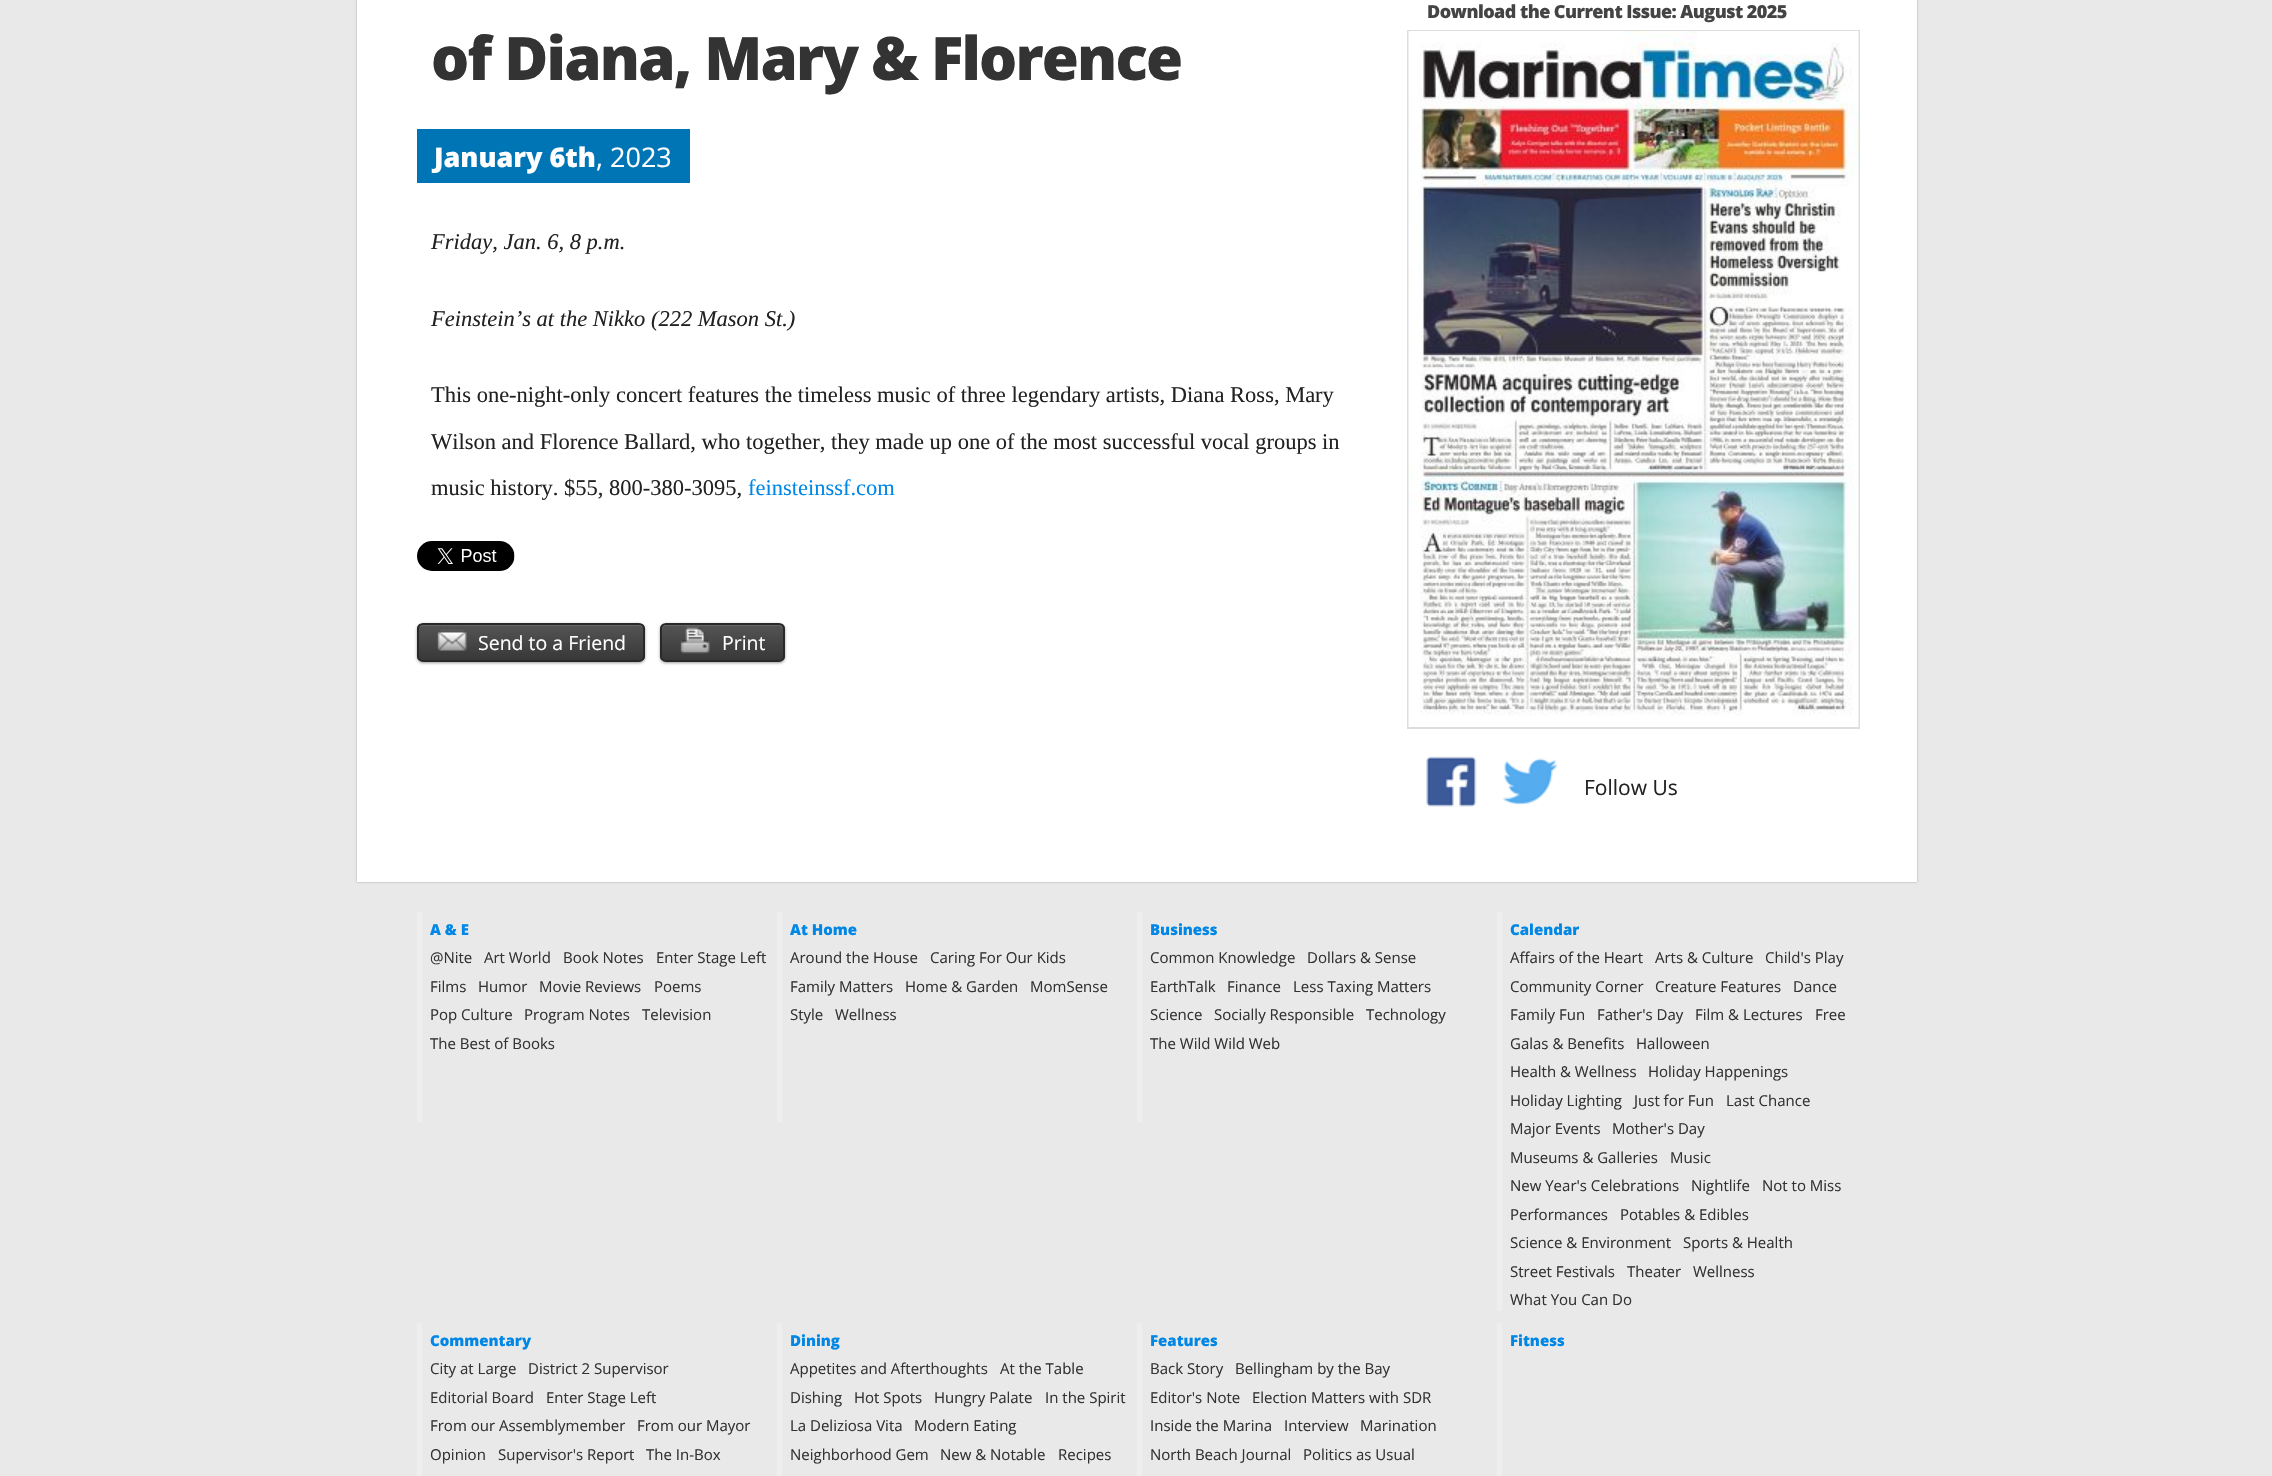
void draw(SkCanvas* canvas) {
	SkPaint paint;
	paint.setAntiAlias(true);
	auto spacedText = [&](const char* s, float x, float y, const SkFont& font, const SkPaint& ink, float letter, float word) {
		std::vector<SkGlyphID> glyphs(font.countText(s, strlen(s), SkTextEncoding::kUTF8));
		std::vector<float> xs(glyphs.size());
		font.textToGlyphs(s, strlen(s), SkTextEncoding::kUTF8, glyphs);
		font.getXPos(glyphs, xs, x);
		float extra = 0;
		for (size_t i = 0; i < glyphs.size(); i++) {
			xs[i] += extra;
			extra += letter + word * (glyphs[i] == font.unicharToGlyph(' '));
		}
		canvas->drawTextBlob(SkTextBlob::MakeFromPosHGlyphs(glyphs, xs, y, font), 0, 0, ink);
	};
	auto svgPath = [&](const char* data, bool evenOdd = false) {
		SkPath result = *SkParsePath::FromSVGString(data);
		if (evenOdd) result.setFillType(SkPathFillType::kEvenOdd);
		return result;
	};
	canvas->clear(0xffe9e9e9);
	paint.setColor(0x4d000000);
	paint.setMaskFilter(SkMaskFilter::MakeBlur(kNormal_SkBlurStyle, 1));
	canvas->drawRect(SkRect::MakeXYWH(357, -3, 1560, 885), paint);
	paint.setMaskFilter(nullptr);
	paint.setColor(0xffffffff);
	canvas->drawRect(SkRect::MakeXYWH(357, 0, 1560, 882), paint);
	SkFont f1(fontMgr->matchFamilyStyle("Open Sans", SkFontStyle(800, SkFontStyle::kNormal_Width, SkFontStyle::kUpright_Slant)), 60);
	f1.setSubpixel(true);
	paint.setColor(0xff333333);
	spacedText("of Diana, Mary & Florence", 431, 80, f1, paint, -1.8, 0);
	paint.setColor(0xff0075b6);
	canvas->drawRect(SkRect::MakeXYWH(417, 129, 273, 54), paint);
	SkFont f2(fontMgr->matchFamilyStyle("Open Sans", SkFontStyle(800, SkFontStyle::kNormal_Width, SkFontStyle::kUpright_Slant)), 27);
	f2.setSubpixel(true);
	paint.setColor(0xffffffff);
	canvas->drawString("January 6th", 434, 167, f2, paint);
	SkFont f3(fontMgr->matchFamilyStyle("Open Sans", SkFontStyle::Normal()), 27);
	f3.setSubpixel(true);
	canvas->drawString(", 2023", 596, 167, f3, paint);
	SkFont f4(fontMgr->matchFamilyStyle("Liberation Serif", SkFontStyle::Italic()), 22.5);
	f4.setSubpixel(true);
	paint.setColor(0xff222222);
	canvas->drawString("Friday, Jan. 6, 8 p.m.", 431, 249, f4, paint);
	canvas->drawString("Feinstein’s at the Nikko (222 Mason St.)", 431, 326, f4, paint);
	SkFont f5(fontMgr->matchFamilyStyle("Liberation Serif", SkFontStyle::Normal()), 22.5);
	f5.setSubpixel(true);
	canvas->drawString("This one-night-only concert features the timeless music of three legendary artists, Diana Ross, Mary", 431, 402, f5, paint);
	canvas->drawString("Wilson and Florence Ballard, who together, they made up one of the most successful vocal groups in", 431, 449, f5, paint);
	canvas->drawString("music history. $55, 800-380-3095,", 431, 495, f5, paint);
	paint.setColor(0xff0087e6);
	canvas->drawString("feinsteinssf.com", 748, 495, f5, paint);
	canvas->drawImageRect(SkImages::DeferredFromEncodedData(SkData::MakeFromFileName("img1.png")), SkRect::MakeXYWH(417, 541, 98, 30), SkSamplingOptions());
	paint.setColor(0x66000000);
	paint.setMaskFilter(SkMaskFilter::MakeBlur(kNormal_SkBlurStyle, 1.5));
	canvas->drawRoundRect(SkRect::MakeXYWH(417, 624, 228, 39), 6, 6, paint);
	paint.setMaskFilter(nullptr);
	canvas->save();
	canvas->clipPath(svgPath("M423 623H639C642.5 623 645 625.5 645 629V656C645 659.5 642.5 662 639 662H423C419.5 662 417 659.5 417 656V629C417 625.5 419.5 623 423 623Z"), true);
	{
		const SkColor colors[] = {0xff555555, 0xff383838};
		const float stops[] = {0, 1};
		const SkPoint ends[] = {{531, 624}, {531, 660}};
		paint.setShader(SkGradientShader::MakeLinear(ends, colors, stops, 2, SkTileMode::kClamp));
		paint.setAlpha(255);
	}
	canvas->drawRect(SkRect::MakeXYWH(417, 624, 228, 36), paint);
	canvas->restore();
	paint.setShader(nullptr);
	paint.setColor(0x1affffff);
	canvas->drawPath(svgPath("M423 626H639C641 626 644 628 644 630V629C644 626 642 624 639 624H424C422 624 420 626 419 628C420 627 422 626 423 626Z"), paint);
	paint.setStroke(true);
	paint.setStrokeWidth(2);
	paint.setColor(0xff292929);
	canvas->drawRoundRect(SkRect::MakeXYWH(418, 624, 226, 37), 5, 5, paint);
	canvas->drawImageRect(SkImages::DeferredFromEncodedData(SkData::MakeFromFileName("img2.png")), SkRect::MakeXYWH(437, 629, 30, 22), SkSamplingOptions());
	SkFont f6(fontMgr->matchFamilyStyle("Open Sans", SkFontStyle::Normal()), 19.5);
	f6.setSubpixel(true);
	paint.setStroke(false);
	paint.setColor(0xffffffff);
	canvas->drawString("Send to a Friend", 478, 650, f6, paint);
	paint.setColor(0x66000000);
	paint.setMaskFilter(SkMaskFilter::MakeBlur(kNormal_SkBlurStyle, 1.5));
	canvas->drawRoundRect(SkRect::MakeXYWH(660, 624, 125, 39), 6, 6, paint);
	paint.setMaskFilter(nullptr);
	canvas->save();
	canvas->clipPath(svgPath("M666 623H779C782.5 623 785 625.5 785 629V656C785 659.5 782.5 662 779 662H666C662.5 662 660 659.5 660 656V629C660 625.5 662.5 623 666 623Z"), true);
	{
		const SkColor colors[] = {0xff555555, 0xff383838};
		const float stops[] = {0, 1};
		const SkPoint ends[] = {{722, 624}, {722, 660}};
		paint.setShader(SkGradientShader::MakeLinear(ends, colors, stops, 2, SkTileMode::kClamp));
		paint.setAlpha(255);
	}
	canvas->drawRect(SkRect::MakeXYWH(660, 624, 125, 36), paint);
	canvas->restore();
	paint.setShader(nullptr);
	paint.setColor(0x1affffff);
	canvas->drawPath(svgPath("M666 626H778C781 626 783 628 783 630C783 619 764 624 760 624H686C681 624 662 619 662 630C662 628 664 626 666 626Z"), paint);
	paint.setStroke(true);
	paint.setColor(0xff292929);
	canvas->drawRoundRect(SkRect::MakeXYWH(661, 624, 123, 37), 5, 5, paint);
	canvas->drawImageRect(SkImages::DeferredFromEncodedData(SkData::MakeFromFileName("img3.png")), SkRect::MakeXYWH(680, 626, 30, 28), SkSamplingOptions());
	paint.setStroke(false);
	paint.setColor(0xffffffff);
	canvas->drawString("Print", 722, 650, f6, paint);
	SkFont f7(fontMgr->matchFamilyStyle("Open Sans", SkFontStyle(800, SkFontStyle::kNormal_Width, SkFontStyle::kUpright_Slant)), 18);
	f7.setSubpixel(true);
	paint.setColor(0xff444444);
	spacedText("Download the Current Issue: August 2025", 1427, 18, f7, paint, -0.55, 0);
	paint.setStroke(true);
	paint.setColor(0xffdddddd);
	canvas->drawRect(SkRect::MakeXYWH(1408, 31, 451, 697), paint);
	canvas->drawImageRect(SkImages::DeferredFromEncodedData(SkData::MakeFromFileName("img4.png")), SkRect::MakeXYWH(1408, 31, 451, 696), SkSamplingOptions());
	canvas->drawImageRect(SkImages::DeferredFromEncodedData(SkData::MakeFromFileName("img5.png")), SkRect::MakeXYWH(1426, 756, 51, 51), SkSamplingOptions());
	canvas->drawImageRect(SkImages::DeferredFromEncodedData(SkData::MakeFromFileName("img6.png")), SkRect::MakeXYWH(1502, 758, 56, 47), SkSamplingOptions());
	SkFont f8(fontMgr->matchFamilyStyle("Open Sans", SkFontStyle::Normal()), 21);
	f8.setSubpixel(true);
	paint.setStroke(false);
	paint.setColor(0xff222222);
	canvas->drawString("Follow Us", 1584, 795, f8, paint);
	paint.setColor(0xffeeeeee);
	canvas->drawRect(SkRect::MakeXYWH(417, 912, 5, 210), paint);
	SkFont f9(fontMgr->matchFamilyStyle("Open Sans", SkFontStyle(800, SkFontStyle::kNormal_Width, SkFontStyle::kUpright_Slant)), 15);
	f9.setSubpixel(true);
	paint.setColor(0xff0087e6);
	canvas->drawString("A & E", 430, 935, f9, paint);
	SkFont f10(fontMgr->matchFamilyStyle("Open Sans", SkFontStyle::Normal()), 15);
	f10.setSubpixel(true);
	paint.setColor(0xff333333);
	canvas->drawString("@Nite", 430, 963, f10, paint);
	canvas->drawString("Art World", 484, 963, f10, paint);
	canvas->drawString("Book Notes", 563, 963, f10, paint);
	canvas->drawString("Enter Stage Left", 656, 963, f10, paint);
	canvas->drawString("Films", 430, 992, f10, paint);
	canvas->drawString("Humor", 478, 992, f10, paint);
	canvas->drawString("Movie Reviews", 539, 992, f10, paint);
	canvas->drawString("Poems", 654, 992, f10, paint);
	canvas->drawString("Pop Culture", 430, 1020, f10, paint);
	canvas->drawString("Program Notes", 524, 1020, f10, paint);
	canvas->drawString("Television", 642, 1020, f10, paint);
	canvas->drawString("The Best of Books", 430, 1049, f10, paint);
	paint.setColor(0xffeeeeee);
	canvas->drawRect(SkRect::MakeXYWH(777, 912, 5, 210), paint);
	paint.setColor(0xff0087e6);
	canvas->drawString("At Home", 790, 935, f9, paint);
	paint.setColor(0xff333333);
	canvas->drawString("Around the House", 790, 963, f10, paint);
	canvas->drawString("Caring For Our Kids", 930, 963, f10, paint);
	canvas->drawString("Family Matters", 790, 992, f10, paint);
	canvas->drawString("Home & Garden", 905, 992, f10, paint);
	canvas->drawString("MomSense", 1030, 992, f10, paint);
	canvas->drawString("Style", 790, 1020, f10, paint);
	canvas->drawString("Wellness", 835, 1020, f10, paint);
	paint.setColor(0xffeeeeee);
	canvas->drawRect(SkRect::MakeXYWH(1137, 912, 5, 210), paint);
	paint.setColor(0xff0087e6);
	canvas->drawString("Business", 1150, 935, f9, paint);
	paint.setColor(0xff333333);
	canvas->drawString("Common Knowledge", 1150, 963, f10, paint);
	canvas->drawString("Dollars & Sense", 1307, 963, f10, paint);
	canvas->drawString("EarthTalk", 1150, 992, f10, paint);
	canvas->drawString("Finance", 1227, 992, f10, paint);
	canvas->drawString("Less Taxing Matters", 1293, 992, f10, paint);
	canvas->drawString("Science", 1150, 1020, f10, paint);
	canvas->drawString("Socially Responsible", 1214, 1020, f10, paint);
	canvas->drawString("Technology", 1366, 1020, f10, paint);
	canvas->drawString("The Wild Wild Web", 1150, 1049, f10, paint);
	paint.setColor(0xffeeeeee);
	canvas->drawRect(SkRect::MakeXYWH(1497, 912, 5, 399), paint);
	paint.setColor(0xff0087e6);
	canvas->drawString("Calendar", 1510, 935, f9, paint);
	paint.setColor(0xff333333);
	canvas->drawString("Affairs of the Heart", 1510, 963, f10, paint);
	canvas->drawString("Arts & Culture", 1655, 963, f10, paint);
	canvas->drawString("Child's Play", 1765, 963, f10, paint);
	canvas->drawString("Community Corner", 1510, 992, f10, paint);
	canvas->drawString("Creature Features", 1655, 992, f10, paint);
	canvas->drawString("Dance", 1793, 992, f10, paint);
	canvas->drawString("Family Fun", 1510, 1020, f10, paint);
	canvas->drawString("Father's Day", 1597, 1020, f10, paint);
	canvas->drawString("Film & Lectures", 1695, 1020, f10, paint);
	canvas->drawString("Free", 1815, 1020, f10, paint);
	canvas->drawString("Galas & Benefits", 1510, 1049, f10, paint);
	canvas->drawString("Halloween", 1636, 1049, f10, paint);
	canvas->drawString("Health & Wellness", 1510, 1077, f10, paint);
	canvas->drawString("Holiday Happenings", 1648, 1077, f10, paint);
	canvas->drawString("Holiday Lighting", 1510, 1106, f10, paint);
	canvas->drawString("Just for Fun", 1634, 1106, f10, paint);
	canvas->drawString("Last Chance", 1726, 1106, f10, paint);
	canvas->drawString("Major Events", 1510, 1134, f10, paint);
	canvas->drawString("Mother's Day", 1612, 1134, f10, paint);
	canvas->drawString("Museums & Galleries", 1510, 1163, f10, paint);
	canvas->drawString("Music", 1670, 1163, f10, paint);
	canvas->drawString("New Year's Celebrations", 1510, 1191, f10, paint);
	canvas->drawString("Nightlife", 1691, 1191, f10, paint);
	canvas->drawString("Not to Miss", 1762, 1191, f10, paint);
	canvas->drawString("Performances", 1510, 1220, f10, paint);
	canvas->drawString("Potables & Edibles", 1620, 1220, f10, paint);
	canvas->drawString("Science & Environment", 1510, 1248, f10, paint);
	canvas->drawString("Sports & Health", 1683, 1248, f10, paint);
	canvas->drawString("Street Festivals", 1510, 1277, f10, paint);
	canvas->drawString("Theater", 1627, 1277, f10, paint);
	canvas->drawString("Wellness", 1693, 1277, f10, paint);
	canvas->drawString("What You Can Do", 1510, 1305, f10, paint);
	paint.setColor(0xffeeeeee);
	canvas->drawRect(SkRect::MakeXYWH(417, 1323, 5, 153), paint);
	paint.setColor(0xff0087e6);
	canvas->drawString("Commentary", 430, 1346, f9, paint);
	paint.setColor(0xff333333);
	canvas->drawString("City at Large", 430, 1374, f10, paint);
	canvas->drawString("District 2 Supervisor", 528, 1374, f10, paint);
	canvas->drawString("Editorial Board", 430, 1403, f10, paint);
	canvas->drawString("Enter Stage Left", 546, 1403, f10, paint);
	canvas->drawString("From our Assemblymember", 430, 1431, f10, paint);
	canvas->drawString("From our Mayor", 637, 1431, f10, paint);
	canvas->drawString("Opinion", 430, 1460, f10, paint);
	canvas->drawString("Supervisor's Report", 498, 1460, f10, paint);
	canvas->drawString("The In-Box", 646, 1460, f10, paint);
	paint.setColor(0xffeeeeee);
	canvas->drawRect(SkRect::MakeXYWH(777, 1323, 5, 153), paint);
	paint.setColor(0xff0087e6);
	canvas->drawString("Dining", 790, 1346, f9, paint);
	paint.setColor(0xff333333);
	canvas->drawString("Appetites and Afterthoughts", 790, 1374, f10, paint);
	canvas->drawString("At the Table", 1000, 1374, f10, paint);
	canvas->drawString("Dishing", 790, 1403, f10, paint);
	canvas->drawString("Hot Spots", 854, 1403, f10, paint);
	canvas->drawString("Hungry Palate", 934, 1403, f10, paint);
	canvas->drawString("In the Spirit", 1045, 1403, f10, paint);
	canvas->drawString("La Deliziosa Vita", 790, 1431, f10, paint);
	canvas->drawString("Modern Eating", 914, 1431, f10, paint);
	canvas->drawString("Neighborhood Gem", 790, 1460, f10, paint);
	canvas->drawString("New & Notable", 940, 1460, f10, paint);
	canvas->drawString("Recipes", 1058, 1460, f10, paint);
	paint.setColor(0xffeeeeee);
	canvas->drawRect(SkRect::MakeXYWH(1137, 1323, 5, 153), paint);
	paint.setColor(0xff0087e6);
	canvas->drawString("Features", 1150, 1346, f9, paint);
	paint.setColor(0xff333333);
	canvas->drawString("Back Story", 1150, 1374, f10, paint);
	canvas->drawString("Bellingham by the Bay", 1235, 1374, f10, paint);
	canvas->drawString("Editor's Note", 1150, 1403, f10, paint);
	canvas->drawString("Election Matters with SDR", 1252, 1403, f10, paint);
	canvas->drawString("Inside the Marina", 1150, 1431, f10, paint);
	canvas->drawString("Interview", 1284, 1431, f10, paint);
	canvas->drawString("Marination", 1360, 1431, f10, paint);
	canvas->drawString("North Beach Journal", 1150, 1460, f10, paint);
	canvas->drawString("Politics as Usual", 1303, 1460, f10, paint);
	paint.setColor(0xffeeeeee);
	canvas->drawRect(SkRect::MakeXYWH(1497, 1323, 5, 153), paint);
	paint.setColor(0xff0087e6);
	canvas->drawString("Fitness", 1510, 1346, f9, paint);
}
